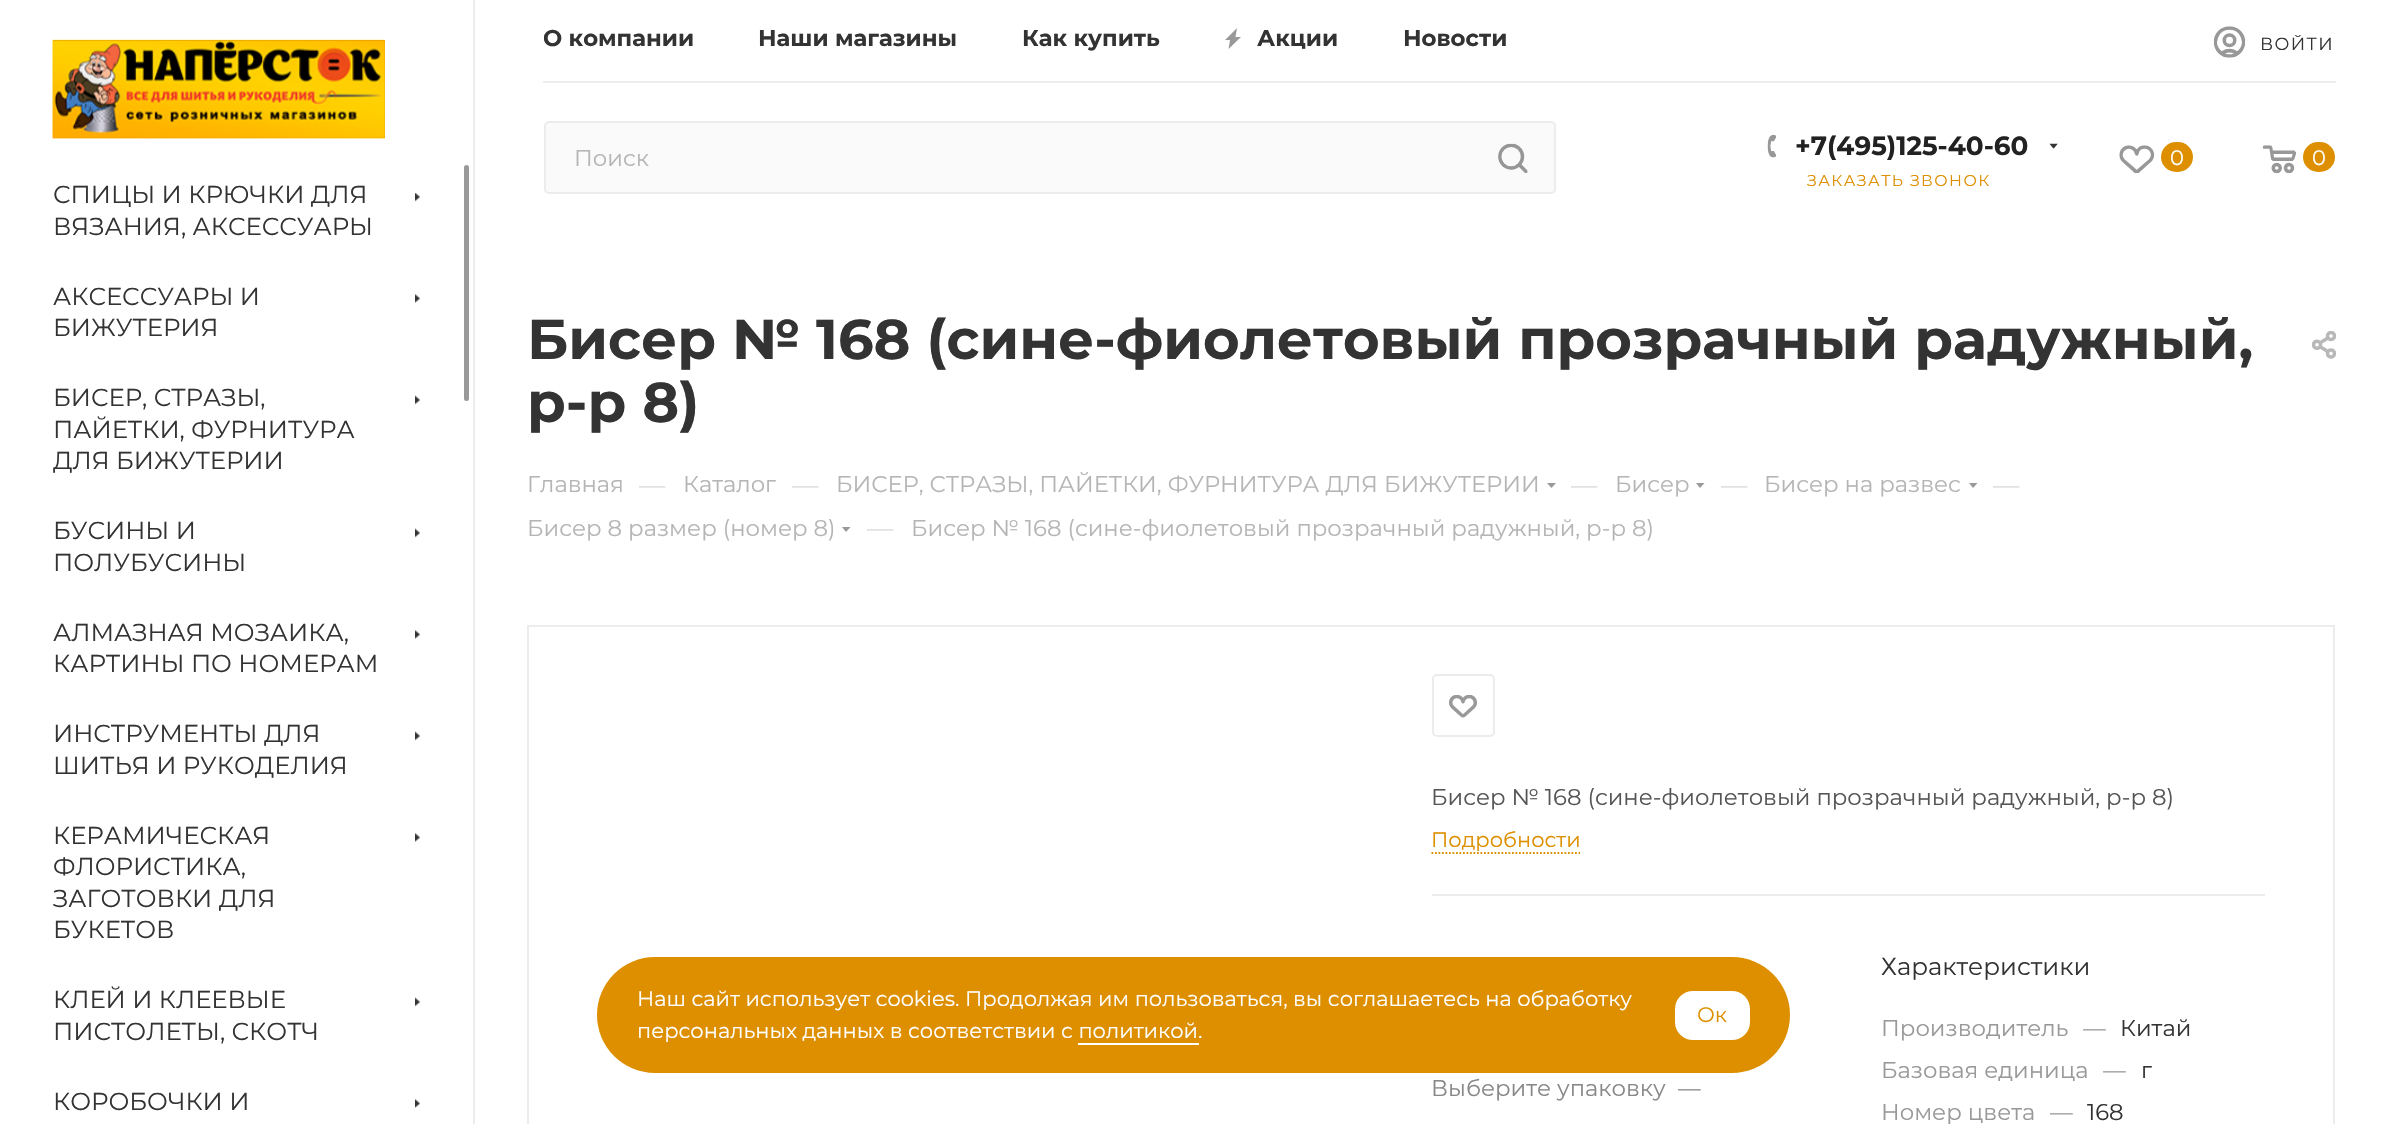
void draw(SkCanvas* canvas) {
	SkPaint paint;
	paint.setAntiAlias(true);
	auto spacedText = [&](const char* s, float x, float y, const SkFont& font, const SkPaint& ink, float letter, float word) {
		std::vector<SkGlyphID> glyphs(font.countText(s, strlen(s), SkTextEncoding::kUTF8));
		std::vector<float> xs(glyphs.size());
		font.textToGlyphs(s, strlen(s), SkTextEncoding::kUTF8, glyphs);
		font.getXPos(glyphs, xs, x);
		float extra = 0;
		for (size_t i = 0; i < glyphs.size(); i++) {
			xs[i] += extra;
			extra += letter + word * (glyphs[i] == font.unicharToGlyph(' '));
		}
		canvas->drawTextBlob(SkTextBlob::MakeFromPosHGlyphs(glyphs, xs, y, font), 0, 0, ink);
	};
	auto svgPath = [&](const char* data, bool evenOdd = false) {
		SkPath result = *SkParsePath::FromSVGString(data);
		if (evenOdd) result.setFillType(SkPathFillType::kEvenOdd);
		return result;
	};
	canvas->clear(0xffffffff);
	canvas->save();
	canvas->clipRect(SkRect::MakeXYWH(544, 0, 963, 79));
	SkFont f1(fontMgr->matchFamilyStyle("Montserrat", SkFontStyle::Bold()), 22.75);
	f1.setSubpixel(true);
	paint.setColor(0xff333333);
	canvas->drawString("О компании", 543, 46, f1, paint);
	canvas->restore();
	canvas->drawString("Наши магазины", 758, 46, f1, paint);
	canvas->drawString("Как купить", 1022, 46, f1, paint);
	paint.setColor(0xff999999);
	canvas->drawPath(svgPath("M1237 28L1225 40H1230L1228.5 49L1241 37H1235.5Z", true), paint);
	paint.setColor(0xff333333);
	canvas->drawString("Акции", 1257, 46, f1, paint);
	canvas->drawString("Новости", 1403, 46, f1, paint);
	canvas->drawImageRect(SkImages::DeferredFromEncodedData(SkData::MakeFromFileName("img1.png")), SkRect::MakeXYWH(2213, 26, 33, 32), SkSamplingOptions());
	canvas->save();
	canvas->clipRect(SkRect::MakeXYWH(2245, 35, 90, 21));
	SkFont f2(fontMgr->matchFamilyStyle("Montserrat", SkFontStyle::Normal()), 17.5);
	f2.setSubpixel(true);
	spacedText("ВОЙТИ", 2260, 50, f2, paint, 1.4, 0);
	canvas->restore();
	paint.setColor(0xffededed);
	canvas->drawRect(SkRect::MakeXYWH(543, 81, 1793, 2), paint);
	paint.setColor(0xfffafafa);
	canvas->drawRoundRect(SkRect::MakeXYWH(545, 122, 1010, 71), 4, 4, paint);
	paint.setStroke(true);
	paint.setStrokeWidth(2);
	paint.setColor(0xffececec);
	canvas->drawRoundRect(SkRect::MakeXYWH(545, 122, 1010, 71), 4, 4, paint);
	SkFont f3(fontMgr->matchFamilyStyle("Montserrat", SkFontStyle::Normal()), 22.75);
	f3.setSubpixel(true);
	paint.setStroke(false);
	paint.setColor(0xffb6b5b5);
	canvas->drawString("Поиск", 574, 166, f3, paint);
	canvas->drawImageRect(SkImages::DeferredFromEncodedData(SkData::MakeFromFileName("img2.png")), SkRect::MakeXYWH(1498, 143, 30, 30), SkSamplingOptions());
	canvas->drawImageRect(SkImages::DeferredFromEncodedData(SkData::MakeFromFileName("img3.png")), SkRect::MakeXYWH(1767, 134, 10, 24), SkSamplingOptions());
	SkFont f4(fontMgr->matchFamilyStyle("Montserrat", SkFontStyle::Bold()), 26.25);
	f4.setSubpixel(true);
	paint.setColor(0xff222222);
	canvas->drawString("+7(495)125-40-60", 1795, 155, f4, paint);
	canvas->drawImageRect(SkImages::DeferredFromEncodedData(SkData::MakeFromFileName("img4.png")), SkRect::MakeXYWH(2049, 143, 9, 6), SkSamplingOptions());
	SkFont f5(fontMgr->matchFamilyStyle("Montserrat", SkFontStyle::Normal()), 15.75);
	f5.setSubpixel(true);
	paint.setColor(0xffdd8f00);
	spacedText("ЗАКАЗАТЬ ЗВОНОК", 1807, 186, f5, paint, 1.4, 0);
	canvas->drawImageRect(SkImages::DeferredFromEncodedData(SkData::MakeFromFileName("img5.png")), SkRect::MakeXYWH(2119, 145, 36, 29), SkSamplingOptions());
	canvas->drawRoundRect(SkRect::MakeXYWH(2161, 142, 32, 30), 15, 15, paint);
	SkFont f6(fontMgr->matchFamilyStyle("Montserrat", SkFontStyle::Normal()), 21);
	f6.setSubpixel(true);
	paint.setColor(0xffffffff);
	canvas->drawString("0", 2170, 165, f6, paint);
	canvas->drawImageRect(SkImages::DeferredFromEncodedData(SkData::MakeFromFileName("img6.png")), SkRect::MakeXYWH(2262, 145, 34, 29), SkSamplingOptions());
	paint.setColor(0xffdd8f00);
	canvas->drawRoundRect(SkRect::MakeXYWH(2303, 142, 32, 30), 15, 15, paint);
	paint.setColor(0xffffffff);
	canvas->drawString("0", 2312, 165, f6, paint);
	paint.setColor(0xffececec);
	canvas->drawRect(SkRect::MakeXYWH(473, 0, 2, 1124), paint);
	paint.setColor(0xffd88c00);
	canvas->drawRect(SkRect::MakeXYWH(53, 40, 332, 98), paint);
	canvas->drawImageRect(SkImages::DeferredFromEncodedData(SkData::MakeFromFileName("img7.png")), SkRect::MakeXYWH(52, 39, 333, 100), SkSamplingOptions());
	SkFont f7(fontMgr->matchFamilyStyle("Montserrat", SkFontStyle::Normal()), 24.5);
	f7.setSubpixel(true);
	paint.setColor(0xff333333);
	canvas->drawString("СПИЦЫ И КРЮЧКИ ДЛЯ", 53, 203, f7, paint);
	canvas->drawImageRect(SkImages::DeferredFromEncodedData(SkData::MakeFromFileName("img8.png")), SkRect::MakeXYWH(415, 193, 5, 9), SkSamplingOptions());
	canvas->drawString("ВЯЗАНИЯ, АКСЕССУАРЫ", 53, 235, f7, paint);
	canvas->drawString("АКСЕССУАРЫ И", 53, 305, f7, paint);
	canvas->drawImageRect(SkImages::DeferredFromEncodedData(SkData::MakeFromFileName("img9.png")), SkRect::MakeXYWH(415, 293, 5, 10), SkSamplingOptions());
	canvas->drawString("БИЖУТЕРИЯ", 53, 336, f7, paint);
	canvas->drawString("БИСЕР, СТРАЗЫ,", 53, 406, f7, paint);
	canvas->drawImageRect(SkImages::DeferredFromEncodedData(SkData::MakeFromFileName("img10.png")), SkRect::MakeXYWH(415, 395, 5, 10), SkSamplingOptions());
	canvas->drawString("ПАЙЕТКИ, ФУРНИТУРА", 53, 438, f7, paint);
	canvas->drawString("ДЛЯ БИЖУТЕРИИ", 53, 469, f7, paint);
	canvas->drawString("БУСИНЫ И", 53, 539, f7, paint);
	canvas->drawImageRect(SkImages::DeferredFromEncodedData(SkData::MakeFromFileName("img10.png")), SkRect::MakeXYWH(415, 528, 5, 10), SkSamplingOptions());
	canvas->drawString("ПОЛУБУСИНЫ", 53, 571, f7, paint);
	canvas->drawString("АЛМАЗНАЯ МОЗАИКА,", 53, 641, f7, paint);
	canvas->drawImageRect(SkImages::DeferredFromEncodedData(SkData::MakeFromFileName("img9.png")), SkRect::MakeXYWH(415, 629, 5, 10), SkSamplingOptions());
	canvas->drawString("КАРТИНЫ ПО НОМЕРАМ", 53, 672, f7, paint);
	canvas->drawString("ИНСТРУМЕНТЫ ДЛЯ", 53, 742, f7, paint);
	canvas->drawImageRect(SkImages::DeferredFromEncodedData(SkData::MakeFromFileName("img10.png")), SkRect::MakeXYWH(415, 731, 5, 10), SkSamplingOptions());
	canvas->drawString("ШИТЬЯ И РУКОДЕЛИЯ", 53, 774, f7, paint);
	canvas->drawString("КЕРАМИЧЕСКАЯ", 53, 844, f7, paint);
	canvas->drawImageRect(SkImages::DeferredFromEncodedData(SkData::MakeFromFileName("img9.png")), SkRect::MakeXYWH(415, 832, 5, 10), SkSamplingOptions());
	canvas->drawString("ФЛОРИСТИКА,", 53, 875, f7, paint);
	canvas->drawString("ЗАГОТОВКИ ДЛЯ", 53, 907, f7, paint);
	canvas->drawString("БУКЕТОВ", 53, 938, f7, paint);
	canvas->drawString("КЛЕЙ И КЛЕЕВЫЕ", 53, 1008, f7, paint);
	canvas->drawImageRect(SkImages::DeferredFromEncodedData(SkData::MakeFromFileName("img10.png")), SkRect::MakeXYWH(415, 997, 5, 10), SkSamplingOptions());
	canvas->drawString("ПИСТОЛЕТЫ, СКОТЧ", 53, 1040, f7, paint);
	canvas->drawString("КОРОБОЧКИ И", 53, 1110, f7, paint);
	canvas->drawImageRect(SkImages::DeferredFromEncodedData(SkData::MakeFromFileName("img9.png")), SkRect::MakeXYWH(415, 1098, 5, 10), SkSamplingOptions());
	paint.setColor(0xff999999);
	canvas->drawRoundRect(SkRect::MakeXYWH(464, 165, 5, 236), 2.5, 2.5, paint);
	SkFont f8(fontMgr->matchFamilyStyle("Montserrat", SkFontStyle::Bold()), 56);
	f8.setSubpixel(true);
	paint.setColor(0xff333333);
	canvas->drawString("Бисер № 168 (сине-фиолетовый прозрачный радужный,", 527, 359, f8, paint);
	canvas->drawString("р-р 8)", 527, 422, f8, paint);
	canvas->drawImageRect(SkImages::DeferredFromEncodedData(SkData::MakeFromFileName("img11.png")), SkRect::MakeXYWH(2312, 331, 24, 28), SkSamplingOptions());
	paint.setColor(0xffb6b5b5);
	canvas->drawString("Главная", 527, 492, f3, paint);
	SkFont f9(fontMgr->matchFamilyStyle("Montserrat", SkFontStyle::Normal()), 26.25);
	f9.setSubpixel(true);
	paint.setColor(0xffdddddd);
	canvas->drawString("—", 639, 494, f9, paint);
	paint.setColor(0xffb6b5b5);
	canvas->drawString("Каталог", 683, 492, f3, paint);
	paint.setColor(0xffdddddd);
	canvas->drawString("—", 792, 494, f9, paint);
	paint.setColor(0xffb6b5b5);
	canvas->drawString("БИСЕР, СТРАЗЫ, ПАЙЕТКИ, ФУРНИТУРА ДЛЯ БИЖУТЕРИИ", 836, 492, f3, paint);
	paint.setColor(0xff999999);
	canvas->drawPath(svgPath("M1547 483H1556L1551.5 488Z", true), paint);
	paint.setColor(0xffdddddd);
	canvas->drawString("—", 1571, 494, f9, paint);
	paint.setColor(0xffb6b5b5);
	canvas->drawString("Бисер", 1615, 492, f3, paint);
	paint.setColor(0xff999999);
	canvas->drawPath(svgPath("M1696 483H1704.5L1700 488Z", true), paint);
	paint.setColor(0xffdddddd);
	canvas->drawString("—", 1721, 494, f9, paint);
	paint.setColor(0xffb6b5b5);
	canvas->drawString("Бисер на развес", 1764, 492, f3, paint);
	paint.setColor(0xff999999);
	canvas->drawPath(svgPath("M1969 483H1977.5L1973 488Z", true), paint);
	paint.setColor(0xffdddddd);
	canvas->drawString("—", 1993, 494, f9, paint);
	paint.setColor(0xffb6b5b5);
	canvas->drawString("Бисер 8 размер (номер 8)", 527, 536, f3, paint);
	paint.setColor(0xff999999);
	canvas->drawPath(svgPath("M842 527H850.5L846 532Z", true), paint);
	paint.setColor(0xffdddddd);
	canvas->drawString("—", 867, 537, f9, paint);
	paint.setColor(0xffb6b5b5);
	canvas->drawString("Бисер № 168 (сине-фиолетовый прозрачный радужный, р-р 8)", 911, 536, f3, paint);
	paint.setStroke(true);
	paint.setColor(0xffececec);
	canvas->drawRect(SkRect::MakeXYWH(528, 626, 1806, 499), paint);
	canvas->drawRoundRect(SkRect::MakeXYWH(1433, 675, 61, 61), 4, 4, paint);
	canvas->drawImageRect(SkImages::DeferredFromEncodedData(SkData::MakeFromFileName("img12.png")), SkRect::MakeXYWH(1449, 695, 28, 23), SkSamplingOptions());
	paint.setStroke(false);
	canvas->drawRect(SkRect::MakeXYWH(1432, 894, 833, 2), paint);
	paint.setColor(0xff555555);
	canvas->drawString("Бисер № 168 (сине-фиолетовый прозрачный радужный, р-р 8)", 1431, 805, f3, paint);
	paint.setColor(0xffdd8f00);
	canvas->drawString("Подробности", 1431, 847, f6, paint);
	paint.setStroke(true);
	paint.setStrokeWidth(1.8);
	paint.setPathEffect(SkDashPathEffect::Make({{1.75f, 1.75f}}, 0));
	canvas->drawPath(svgPath("M1431.5 853H1580"), paint);
	paint.setPathEffect(nullptr);
	paint.setStroke(false);
	paint.setColor(0xff888888);
	canvas->drawString("Выберите упаковку", 1431, 1096, f3, paint);
	canvas->drawString("—", 1678, 1096, f3, paint);
	paint.setColor(0xff333333);
	canvas->drawString("Характеристики", 1881, 975, f7, paint);
	paint.setColor(0xff999999);
	canvas->drawString("Производитель", 1881, 1036, f3, paint);
	canvas->drawString("—", 2083, 1036, f3, paint);
	paint.setColor(0xff333333);
	canvas->drawString("Китай", 2120, 1036, f3, paint);
	paint.setColor(0xff999999);
	canvas->drawString("Базовая единица", 1881, 1078, f3, paint);
	canvas->drawString("—", 2103, 1078, f3, paint);
	paint.setColor(0xff333333);
	canvas->drawString("г", 2141, 1078, f3, paint);
	paint.setColor(0xff999999);
	canvas->drawString("Номер цвета", 1881, 1120, f3, paint);
	canvas->drawString("—", 2050, 1120, f3, paint);
	paint.setColor(0xff333333);
	canvas->drawString("168", 2087, 1120, f3, paint);
	paint.setColor(0xffdd8f00);
	canvas->drawRoundRect(SkRect::MakeXYWH(597, 957, 1193, 116), 58, 58, paint);
	paint.setColor(0xffffffff);
	canvas->drawString("Наш сайт использует cookies. Продолжая им пользоваться, вы соглашаетесь на обработку", 637, 1006, f6, paint);
	canvas->drawString("персональных данных в соответствии с политикой.", 637, 1038, f6, paint);
	canvas->drawRect(SkRect::MakeXYWH(1078, 1043, 121, 2), paint);
	canvas->drawRoundRect(SkRect::MakeXYWH(1675, 991, 75, 49), 18, 18, paint);
	paint.setColor(0xffdd8f00);
	canvas->drawString("Ок", 1697, 1022, f6, paint);
}
